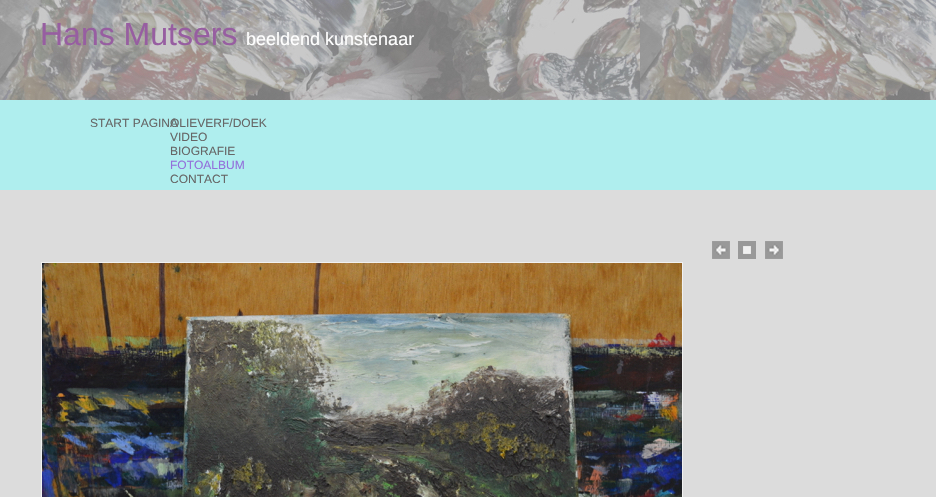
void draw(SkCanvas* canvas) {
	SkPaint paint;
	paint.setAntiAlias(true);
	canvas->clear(0xffdcdcdc);
	canvas->drawImageRect(SkImages::DeferredFromEncodedData(SkData::MakeFromFileName("img1.png")), SkRect::MakeXYWH(0, 0, 936, 100), SkSamplingOptions());
	SkFont f1(fontMgr->matchFamilyStyle("Liberation Sans", SkFontStyle::Normal()), 32);
	f1.setSubpixel(true);
	paint.setColor(0xff975ea1);
	canvas->drawString("Hans Mutsers", 40, 45, f1, paint);
	SkFont f2(fontMgr->matchFamilyStyle("Liberation Sans", SkFontStyle::Normal()), 18);
	f2.setSubpixel(true);
	paint.setColor(0xffffffff);
	canvas->drawString("beeldend kunstenaar", 246, 45, f2, paint);
	paint.setColor(0xffafeeee);
	canvas->drawRect(SkRect::MakeXYWH(0, 100, 936, 90), paint);
	SkFont f3(fontMgr->matchFamilyStyle("Liberation Sans", SkFontStyle::Normal()), 12);
	f3.setSubpixel(true);
	paint.setColor(0xff666666);
	canvas->drawString("OLIEVERF/DOEK", 170, 127, f3, paint);
	canvas->drawString("START PAGINA", 90, 127, f3, paint);
	canvas->drawString("VIDEO", 170, 141, f3, paint);
	canvas->drawString("BIOGRAFIE", 170, 155, f3, paint);
	paint.setColor(0xff9370db);
	canvas->drawString("FOTOALBUM", 170, 169, f3, paint);
	paint.setColor(0xff666666);
	canvas->drawString("CONTACT", 170, 183, f3, paint);
	canvas->drawImageRect(SkImages::DeferredFromEncodedData(SkData::MakeFromFileName("img2.png")), SkRect::MakeXYWH(712, 241, 18, 18), SkSamplingOptions());
	canvas->drawImageRect(SkImages::DeferredFromEncodedData(SkData::MakeFromFileName("img3.png")), SkRect::MakeXYWH(738, 241, 18, 18), SkSamplingOptions());
	canvas->drawImageRect(SkImages::DeferredFromEncodedData(SkData::MakeFromFileName("img4.png")), SkRect::MakeXYWH(765, 241, 18, 18), SkSamplingOptions());
	paint.setStroke(true);
	paint.setStrokeWidth(1);
	paint.setColor(0xfff1f1f1);
	canvas->drawRect(SkRect::MakeXYWH(41.5, 262.5, 641, 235), paint);
	canvas->drawImageRect(SkImages::DeferredFromEncodedData(SkData::MakeFromFileName("img5.png")), SkRect::MakeXYWH(42, 263, 640, 234), SkSamplingOptions());
}
